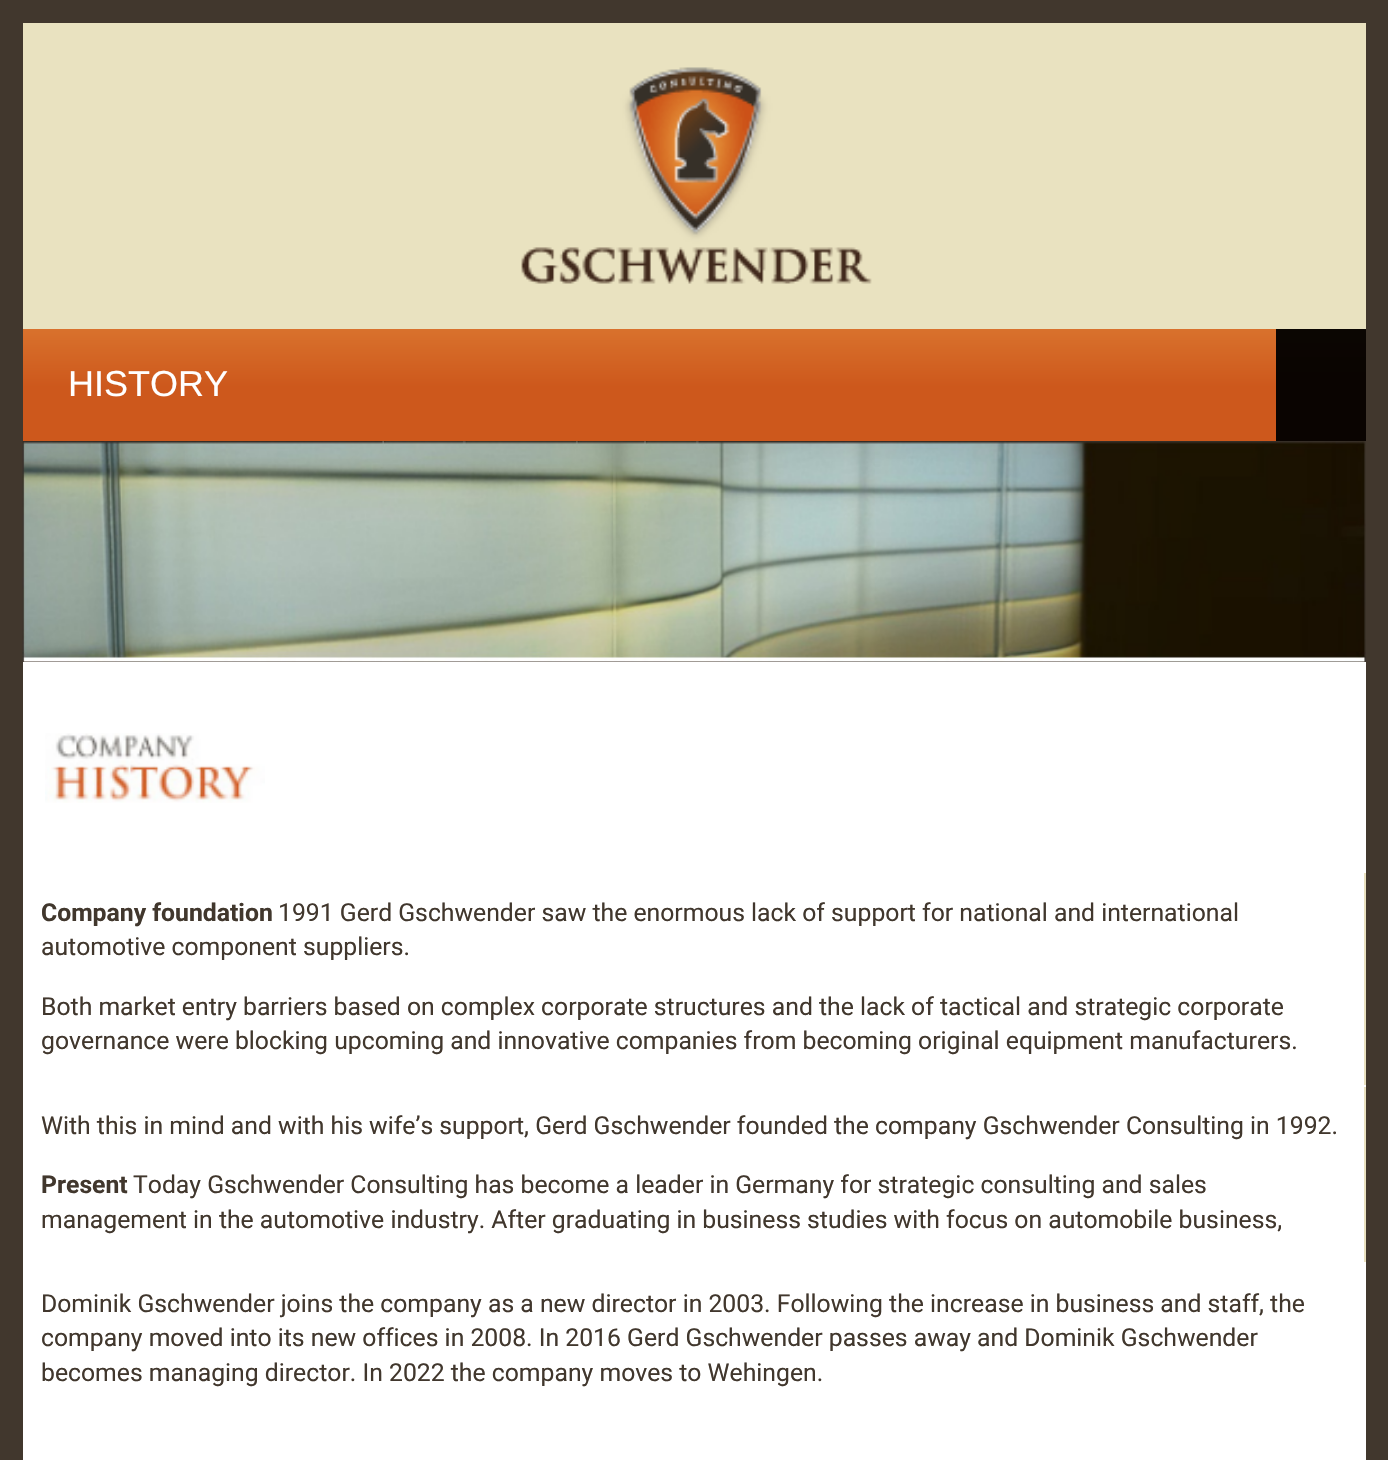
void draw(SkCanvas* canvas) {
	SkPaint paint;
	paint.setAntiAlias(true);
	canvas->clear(0xff41372d);
	paint.setColor(0xffe9e2c0);
	canvas->drawRect(SkRect::MakeXYWH(23, 23, 1343, 306), paint);
	canvas->drawImageRect(SkImages::DeferredFromEncodedData(SkData::MakeFromFileName("img1.png")), SkRect::MakeXYWH(521, 67, 351, 217), SkSamplingOptions());
	{
		const SkColor colors[] = {0xffd9722d, 0xffcd581c};
		const float stops[] = {0, 0.52};
		const SkPoint ends[] = {{694, 328}, {694, 441}};
		paint.setShader(SkGradientShader::MakeLinear(ends, colors, stops, 2, SkTileMode::kClamp));
		paint.setAlpha(255);
	}
	canvas->drawRect(SkRect::MakeXYWH(23, 329, 1253, 112), paint);
	{
		const SkColor colors[] = {0xff0b0602, 0xff0a0401};
		const float stops[] = {0, 0.52};
		const SkPoint ends[] = {{694, 328}, {694, 441}};
		paint.setShader(SkGradientShader::MakeLinear(ends, colors, stops, 2, SkTileMode::kClamp));
		paint.setAlpha(255);
	}
	canvas->drawRect(SkRect::MakeXYWH(1276, 329, 90, 112), paint);
	SkFont f1(fontMgr->matchFamilyStyle("Liberation Sans", SkFontStyle::Normal()), 36);
	f1.setSubpixel(true);
	paint.setShader(nullptr);
	paint.setColor(0xffffffff);
	canvas->drawString("HISTORY", 68, 396, f1, paint);
	canvas->drawImageRect(SkImages::DeferredFromEncodedData(SkData::MakeFromFileName("img2.png")), SkRect::MakeXYWH(22, 441, 1344, 221), SkSamplingOptions());
	canvas->drawRect(SkRect::MakeXYWH(23, 662, 1343, 798), paint);
	canvas->drawImageRect(SkImages::DeferredFromEncodedData(SkData::MakeFromFileName("img3.png")), SkRect::MakeXYWH(45, 733, 220, 70), SkSamplingOptions());
	paint.setColor(0xffe9e0bf);
	canvas->drawRect(SkRect::MakeXYWH(1364, 873, 2, 212), paint);
	SkFont f2(fontMgr->matchFamilyStyle("Roboto", SkFontStyle::Bold()), 24.75);
	f2.setSubpixel(true);
	paint.setColor(0xff41372d);
	canvas->drawString("Company foundation", 41, 921, f2, paint);
	SkFont f3(fontMgr->matchFamilyStyle("Roboto", SkFontStyle::Normal()), 24.75);
	f3.setSubpixel(true);
	canvas->drawString("1991 Gerd Gschwender saw the enormous lack of support for national and international", 278, 921, f3, paint);
	canvas->drawString("automotive component suppliers.", 41, 955, f3, paint);
	canvas->drawString("Both market entry barriers based on complex corporate structures and the lack of tactical and strategic corporate", 41, 1015, f3, paint);
	canvas->drawString("governance were blocking upcoming and innovative companies from becoming original equipment manufacturers.", 41, 1049, f3, paint);
	paint.setColor(0xffe9e0bf);
	canvas->drawRect(SkRect::MakeXYWH(1364, 1087, 2, 175), paint);
	paint.setColor(0xff41372d);
	canvas->drawString("With this in mind and with his wife’s support, Gerd Gschwender founded the company Gschwender Consulting in 1992.", 41, 1134, f3, paint);
	canvas->drawString("Present", 41, 1193, f2, paint);
	canvas->drawString("Today Gschwender Consulting has become a leader in Germany for strategic consulting and sales", 133, 1193, f3, paint);
	canvas->drawString("management in the automotive industry. After graduating in business studies with focus on automobile business,", 41, 1228, f3, paint);
	canvas->drawString("Dominik Gschwender joins the company as a new director in 2003. Following the increase in business and staff, the", 41, 1312, f3, paint);
	canvas->drawString("company moved into its new offices in 2008. In 2016 Gerd Gschwender passes away and Dominik Gschwender", 41, 1346, f3, paint);
	canvas->drawString("becomes managing director. In 2022 the company moves to Wehingen.", 41, 1381, f3, paint);
}
